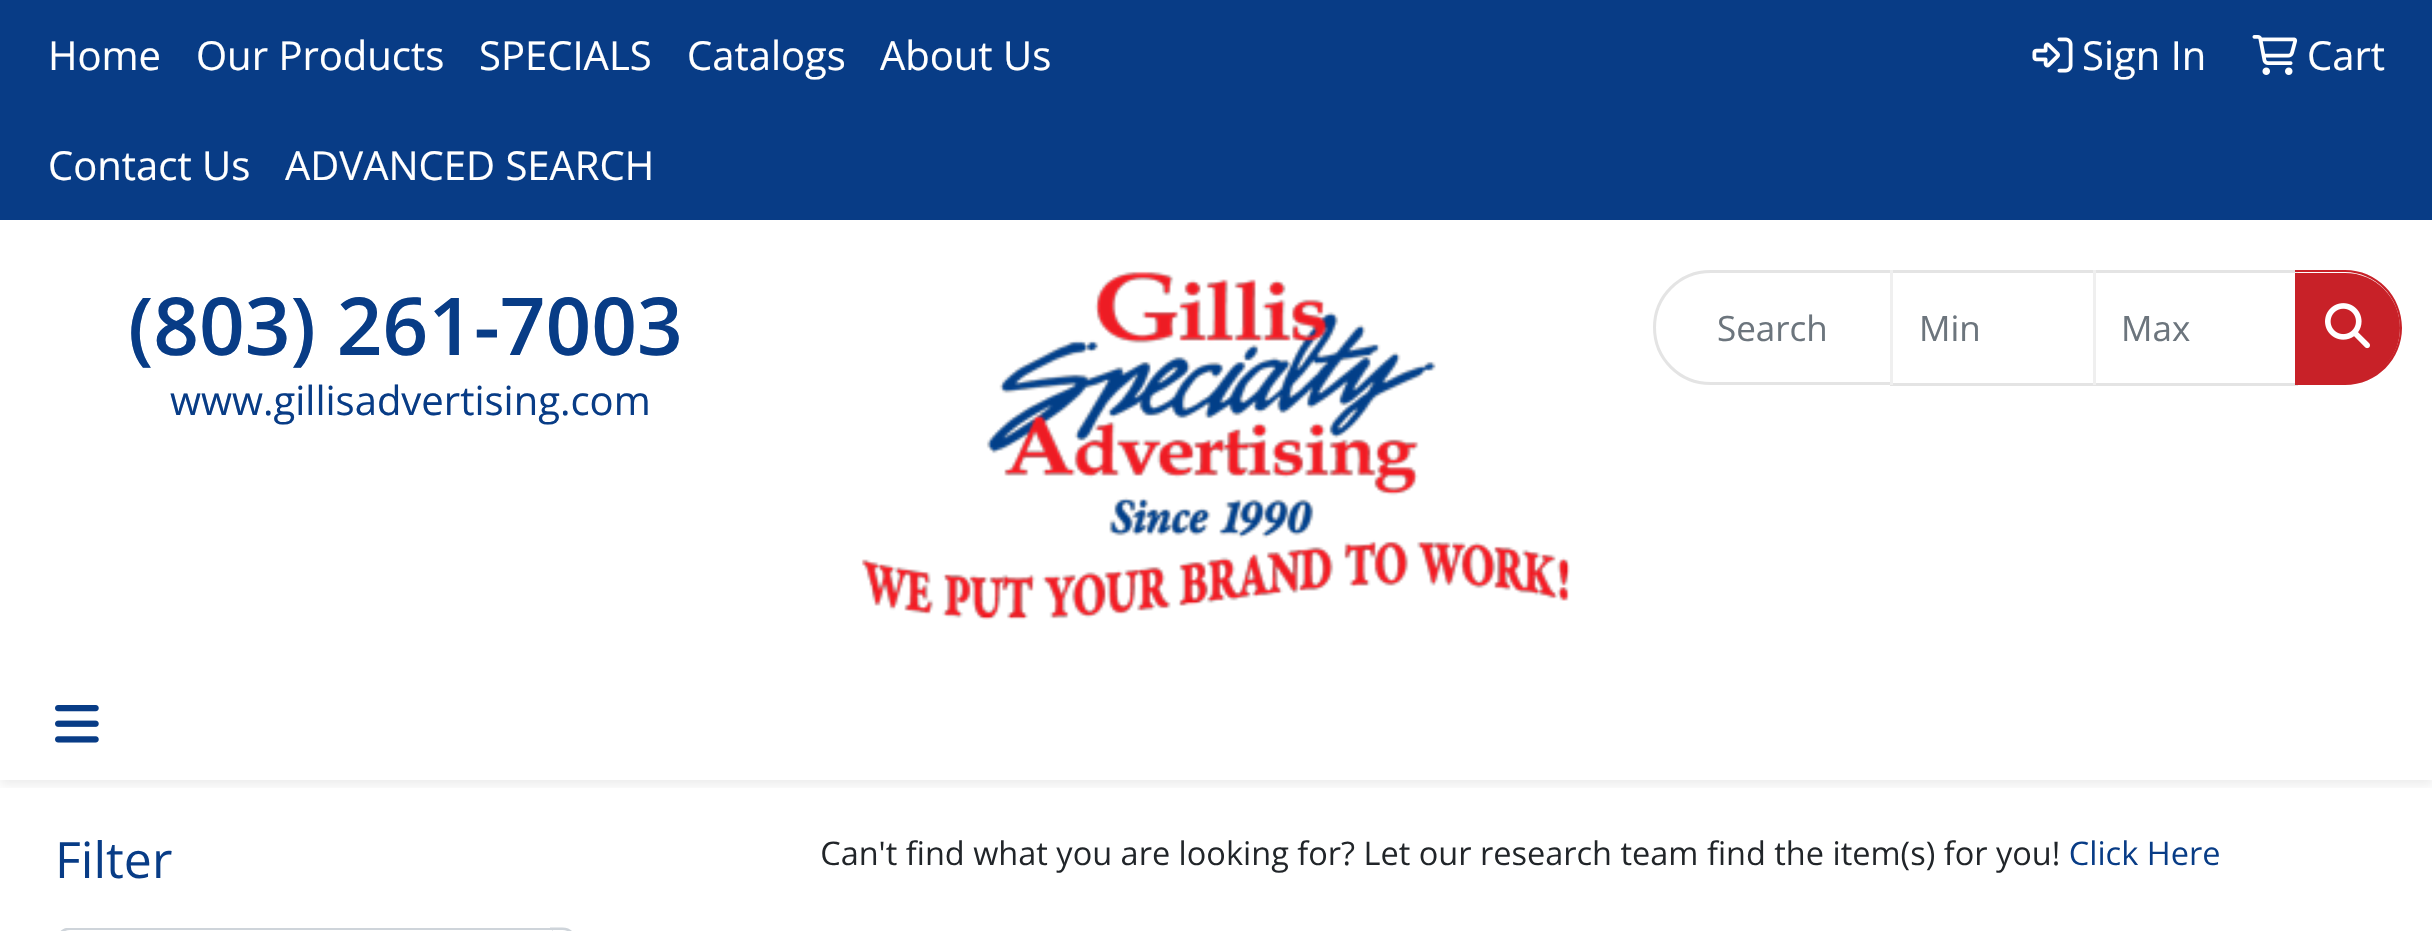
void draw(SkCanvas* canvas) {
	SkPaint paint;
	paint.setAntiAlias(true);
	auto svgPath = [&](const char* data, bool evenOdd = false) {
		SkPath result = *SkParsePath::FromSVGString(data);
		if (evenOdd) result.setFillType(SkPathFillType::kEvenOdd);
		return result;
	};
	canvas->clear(0xffffffff);
	paint.setColor(0xff083c86);
	canvas->drawRect(SkRect::MakeXYWH(0, 0, 2432, 220), paint);
	SkFont f1(fontMgr->matchFamilyStyle("Open Sans", SkFontStyle::Normal()), 40);
	f1.setSubpixel(true);
	paint.setColor(0xffffffff);
	canvas->drawString("Home", 48, 70, f1, paint);
	canvas->drawString("Our Products", 196, 70, f1, paint);
	canvas->drawString("SPECIALS", 479, 70, f1, paint);
	canvas->drawString("Catalogs", 687, 70, f1, paint);
	canvas->drawString("About Us", 880, 70, f1, paint);
	canvas->drawString("Contact Us", 48, 180, f1, paint);
	canvas->drawString("ADVANCED SEARCH", 285, 180, f1, paint);
	canvas->drawImageRect(SkImages::DeferredFromEncodedData(SkData::MakeFromFileName("img1.png")), SkRect::MakeXYWH(2032, 37, 41, 36), SkSamplingOptions());
	canvas->drawString("Sign In", 2082, 70, f1, paint);
	canvas->drawImageRect(SkImages::DeferredFromEncodedData(SkData::MakeFromFileName("img2.png")), SkRect::MakeXYWH(2252, 35, 46, 40), SkSamplingOptions());
	canvas->drawString("Cart", 2307, 70, f1, paint);
	SkFont f2(fontMgr->matchFamilyStyle("Open Sans", SkFontStyle(600, SkFontStyle::kNormal_Width, SkFontStyle::kUpright_Slant)), 80);
	f2.setSubpixel(true);
	paint.setColor(0xff083c86);
	canvas->drawString("(803) 261-7003", 128, 355, f2, paint);
	canvas->drawString("www.gillisadvertising.com", 170, 415, f1, paint);
	canvas->drawImageRect(SkImages::DeferredFromEncodedData(SkData::MakeFromFileName("img3.png")), SkRect::MakeXYWH(861, 271, 709, 349), SkSamplingOptions());
	paint.setStroke(true);
	paint.setStrokeWidth(3);
	paint.setColor(0xffe4e4e4);
	canvas->drawPath(svgPath("M1710.5 271.5H1891.5V383.5H1710.5C1679.5 383.5 1654.5 358.5 1654.5 327.5C1654.5 296.5 1679.5 271.5 1710.5 271.5Z"), paint);
	SkFont f3(fontMgr->matchFamilyStyle("Open Sans", SkFontStyle::Normal()), 35);
	f3.setSubpixel(true);
	paint.setStroke(false);
	paint.setColor(0xff6c757d);
	canvas->drawString("Search", 1717, 341, f3, paint);
	paint.setColor(0xffe4e4e4);
	canvas->drawRect(SkRect::MakeXYWH(1890, 270, 408, 3), paint);
	canvas->drawRect(SkRect::MakeXYWH(1890, 383, 408, 3), paint);
	paint.setColor(0xffefefef);
	canvas->drawRect(SkRect::MakeXYWH(1890, 270, 3, 115), paint);
	paint.setColor(0xff6c757d);
	canvas->drawString("Min", 1919, 341, f3, paint);
	paint.setColor(0xffefefef);
	canvas->drawRect(SkRect::MakeXYWH(2295, 270, 3, 3), paint);
	canvas->drawRect(SkRect::MakeXYWH(2093, 270, 3, 115), paint);
	paint.setColor(0xff6c757d);
	canvas->drawString("Max", 2121, 341, f3, paint);
	paint.setColor(0xffc82128);
	canvas->drawPath(svgPath("M2295 273H2345C2375.5 273 2400 297.5 2400 328C2400 358.5 2375.5 383 2345 383H2295Z"), paint);
	canvas->drawPath(svgPath("M2295 270H2345C2377 270 2402 296 2402 328C2402 359 2377 385 2345 385H2295ZM2295 272H2345C2375 272 2400 297 2400 328C2400 358 2375 382 2345 382H2295Z", true), paint);
	canvas->drawImageRect(SkImages::DeferredFromEncodedData(SkData::MakeFromFileName("img4.png")), SkRect::MakeXYWH(2325, 303, 45, 46), SkSamplingOptions());
	canvas->save();
	canvas->clipRect(SkRect::MakeXYWH(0, 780, 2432, 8));
	paint.setColor(0x12000000);
	paint.setMaskFilter(SkMaskFilter::MakeBlur(kNormal_SkBlurStyle, 5));
	canvas->drawRect(SkRect::MakeXYWH(0, 675, 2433, 110), paint);
	paint.setMaskFilter(nullptr);
	canvas->restore();
	canvas->drawImageRect(SkImages::DeferredFromEncodedData(SkData::MakeFromFileName("img5.png")), SkRect::MakeXYWH(55, 705, 44, 38), SkSamplingOptions());
	canvas->drawImageRect(SkImages::DeferredFromEncodedData(SkData::MakeFromFileName("img6.png")), SkRect::MakeXYWH(59, 840, 2160, 91), SkSamplingOptions());
}
